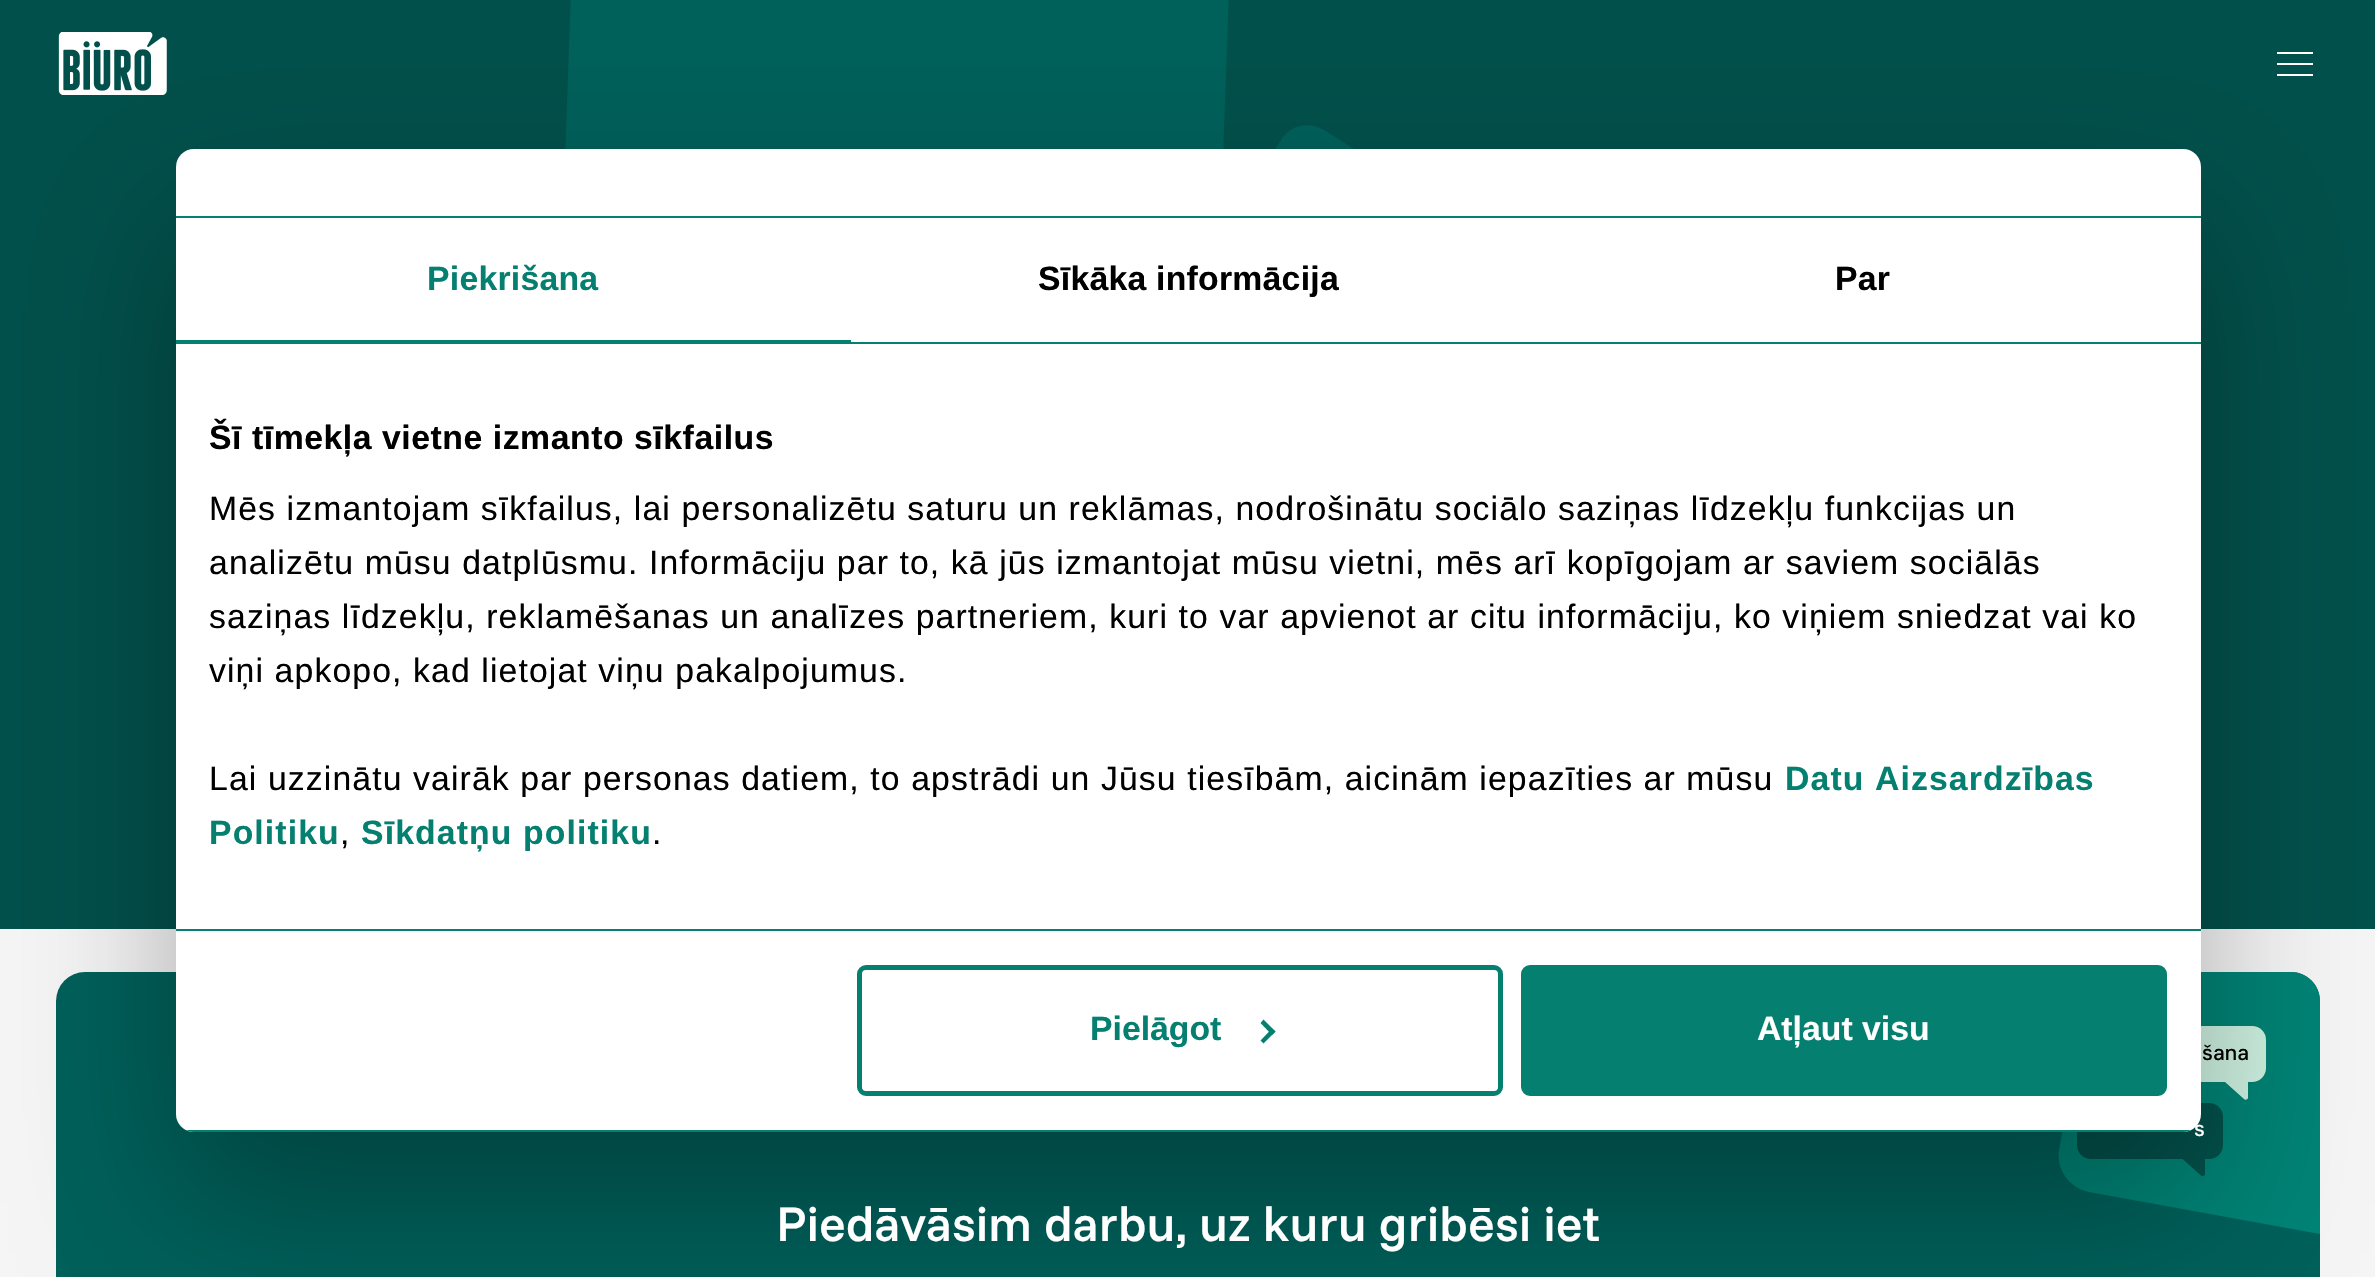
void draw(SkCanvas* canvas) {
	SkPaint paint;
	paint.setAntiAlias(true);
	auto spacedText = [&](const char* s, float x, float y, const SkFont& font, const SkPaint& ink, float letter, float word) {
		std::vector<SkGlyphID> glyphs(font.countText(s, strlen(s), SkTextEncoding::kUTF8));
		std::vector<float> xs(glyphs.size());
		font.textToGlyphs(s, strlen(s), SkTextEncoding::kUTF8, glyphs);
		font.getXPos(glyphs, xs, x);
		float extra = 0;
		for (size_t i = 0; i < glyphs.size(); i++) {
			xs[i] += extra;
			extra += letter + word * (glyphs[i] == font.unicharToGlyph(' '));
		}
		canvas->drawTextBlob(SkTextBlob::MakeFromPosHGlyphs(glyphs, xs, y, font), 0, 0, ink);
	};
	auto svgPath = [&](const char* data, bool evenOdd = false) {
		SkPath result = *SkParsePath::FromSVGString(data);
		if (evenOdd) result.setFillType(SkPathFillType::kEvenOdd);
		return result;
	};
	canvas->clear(0xfff5f5f5);
	paint.setColor(0xff02504b);
	canvas->drawRect(SkRect::MakeXYWH(0, 0, 2375, 929), paint);
	paint.setColor(0xff00605a);
	canvas->drawPath(svgPath("M607-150L1203-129C1220-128 1233-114 1232-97L1205 664C1205 681 1190 694 1173 694L578 673C561 672 547 658 548 640L575-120C576-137 590-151 607-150Z"), paint);
	canvas->save();
	canvas->clipRect(SkRect::MakeXYWH(547, 0, 1282, 929));
	canvas->drawPath(svgPath("M1324 130L1802 435C1816 444 1821 464 1811 478L1383 1150C1374 1164 1355 1169 1340 1159L862 854C848 845 843 826 852 812L1281 140C1290 125 1309 121 1324 130Z"), paint);
	canvas->restore();
	canvas->drawImageRect(SkImages::DeferredFromEncodedData(SkData::MakeFromFileName("img1.png")), SkRect::MakeXYWH(58, 32, 109, 63), SkSamplingOptions());
	paint.setColor(0xffffffff);
	canvas->drawRect(SkRect::MakeXYWH(2277, 52, 36, 2), paint);
	canvas->drawRect(SkRect::MakeXYWH(2277, 63, 36, 2), paint);
	canvas->drawRect(SkRect::MakeXYWH(2277, 74, 36, 2), paint);
	paint.setColor(0xff00605a);
	canvas->drawRoundRect(SkRect::MakeXYWH(56, 972, 2264, 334), 29, 29, paint);
	paint.setColor(0xff008375);
	canvas->drawPath(svgPath("M2089 1192C2069 1188 2056 1169 2059 1150L2091 972H2291C2307 972 2320 985 2320 1001V1234Z"), paint);
	paint.setColor(0xffcef2e1);
	canvas->drawRoundRect(SkRect::MakeXYWH(2135, 1026, 131, 56), 14, 14, paint);
	canvas->drawPath(svgPath("M2248 1097.5V1082H2225L2244 1099C2245.5 1100.5 2248 1099.5 2248 1097.5Z"), paint);
	paint.setColor(0xff02504b);
	canvas->drawRoundRect(SkRect::MakeXYWH(2077, 1103, 146, 56), 14, 14, paint);
	canvas->drawPath(svgPath("M2205 1174V1159H2182.5L2201 1175.5C2202.5 1177 2205 1176 2205 1174Z"), paint);
	paint.setColor(0x4d000000);
	paint.setMaskFilter(SkMaskFilter::MakeBlur(kNormal_SkBlurStyle, 76.5));
	canvas->drawRoundRect(SkRect::MakeXYWH(176, 221, 2025, 983), 18, 18, paint);
	paint.setMaskFilter(nullptr);
	paint.setColor(0xffffffff);
	canvas->drawRoundRect(SkRect::MakeXYWH(176, 149, 2025, 983), 18, 18, paint);
	paint.setColor(0xff057f70);
	canvas->drawRect(SkRect::MakeXYWH(176, 216, 2025, 2), paint);
	canvas->drawRect(SkRect::MakeXYWH(176, 342, 2025, 2), paint);
	canvas->drawRect(SkRect::MakeXYWH(176, 340, 675, 2), paint);
	SkFont f1(fontMgr->matchFamilyStyle("Liberation Sans", SkFontStyle::Bold()), 33.75);
	f1.setSubpixel(true);
	spacedText("Piekrišana", 427, 290, f1, paint, 0.25, 0);
	paint.setColor(0xff000000);
	spacedText("Sīkāka informācija", 1038, 290, f1, paint, 0.25, 0);
	spacedText("Par", 1835, 290, f1, paint, 0.25, 0);
	paint.setColor(0xff057f70);
	canvas->drawRect(SkRect::MakeXYWH(176, 929, 2025, 2), paint);
	paint.setColor(0xff000000);
	spacedText("Šī tīmekļa vietne izmanto sīkfailus", 209, 449, f1, paint, 0.55, 0);
	SkFont f2(fontMgr->matchFamilyStyle("Liberation Sans", SkFontStyle::Normal()), 33.75);
	f2.setSubpixel(true);
	spacedText("Mēs izmantojam sīkfailus, lai personalizētu saturu un reklāmas, nodrošinātu sociālo saziņas līdzekļu funkcijas un", 209, 520, f2, paint, 1.12, 0);
	spacedText("analizētu mūsu datplūsmu. Informāciju par to, kā jūs izmantojat mūsu vietni, mēs arī kopīgojam ar saviem sociālās", 209, 574, f2, paint, 1.12, 0);
	spacedText("saziņas līdzekļu, reklamēšanas un analīzes partneriem, kuri to var apvienot ar citu informāciju, ko viņiem sniedzat vai ko", 209, 628, f2, paint, 1.12, 0);
	spacedText("viņi apkopo, kad lietojat viņu pakalpojumus.", 209, 682, f2, paint, 1.12, 0);
	spacedText("Lai uzzinātu vairāk par personas datiem, to apstrādi un Jūsu tiesībām, aicinām iepazīties ar mūsu", 209, 790, f2, paint, 1.12, 0);
	paint.setColor(0xff057f70);
	spacedText("Datu Aizsardzības", 1785, 790, f1, paint, 1.12, 0);
	spacedText("Politiku", 209, 844, f1, paint, 1.12, 0);
	paint.setColor(0xff000000);
	spacedText(",", 340, 844, f2, paint, 1.12, 0);
	paint.setColor(0xff057f70);
	spacedText("Sīkdatņu politiku", 361, 844, f1, paint, 1.12, 0);
	paint.setColor(0xff000000);
	spacedText(".", 652, 844, f2, paint, 1.12, 0);
	canvas->save();
	canvas->clipPath(svgPath("M194 149H2183C2193 149 2201 157 2201 167V1114C2201 1124 2193 1132 2183 1132H194C184 1132 176 1124 176 1114V167C176 157 184 149 194 149Z"), true);
	paint.setColor(0xff057f70);
	canvas->drawRect(SkRect::MakeXYWH(186, 1130, 2005, 2), paint);
	canvas->restore();
	paint.setStroke(true);
	paint.setStrokeWidth(5);
	canvas->drawRoundRect(SkRect::MakeXYWH(859.5, 967.5, 641, 126), 6.5, 6.5, paint);
	paint.setStroke(false);
	canvas->drawString("Pielāgot", 1090, 1040, f1, paint);
	canvas->drawPath(svgPath("M1263.5 1019.5L1275.5 1031.5L1272 1035L1260.5 1023Z"), paint);
	canvas->drawPath(svgPath("M1272 1028.5L1275.5 1031.5L1263.5 1043.5L1260.5 1040.5Z"), paint);
	canvas->drawRoundRect(SkRect::MakeXYWH(1523.5, 967.5, 641, 126), 6.5, 6.5, paint);
	paint.setStroke(true);
	canvas->drawRoundRect(SkRect::MakeXYWH(1523.5, 967.5, 641, 126), 6.5, 6.5, paint);
	paint.setStroke(false);
	paint.setColor(0xffffffff);
	canvas->drawString("Atļaut visu", 1757, 1040, f1, paint);
	SkFont f3(fontMgr->matchFamilyStyle("DM Sans", SkFontStyle(500, SkFontStyle::kNormal_Width, SkFontStyle::kUpright_Slant)), 21);
	f3.setSubpixel(true);
	paint.setColor(0xff000000);
	canvas->drawString("šana", 2202, 1060, f3, paint);
	paint.setColor(0xffffffff);
	canvas->drawString("s", 2194, 1136, f3, paint);
	SkFont f4(fontMgr->matchFamilyStyle("Funnel Sans", SkFontStyle(500, SkFontStyle::kNormal_Width, SkFontStyle::kUpright_Slant)), 49.5);
	f4.setSubpixel(true);
	canvas->drawString("Piedāvāsim darbu, uz kuru gribēsi iet", 776, 1241, f4, paint);
}
